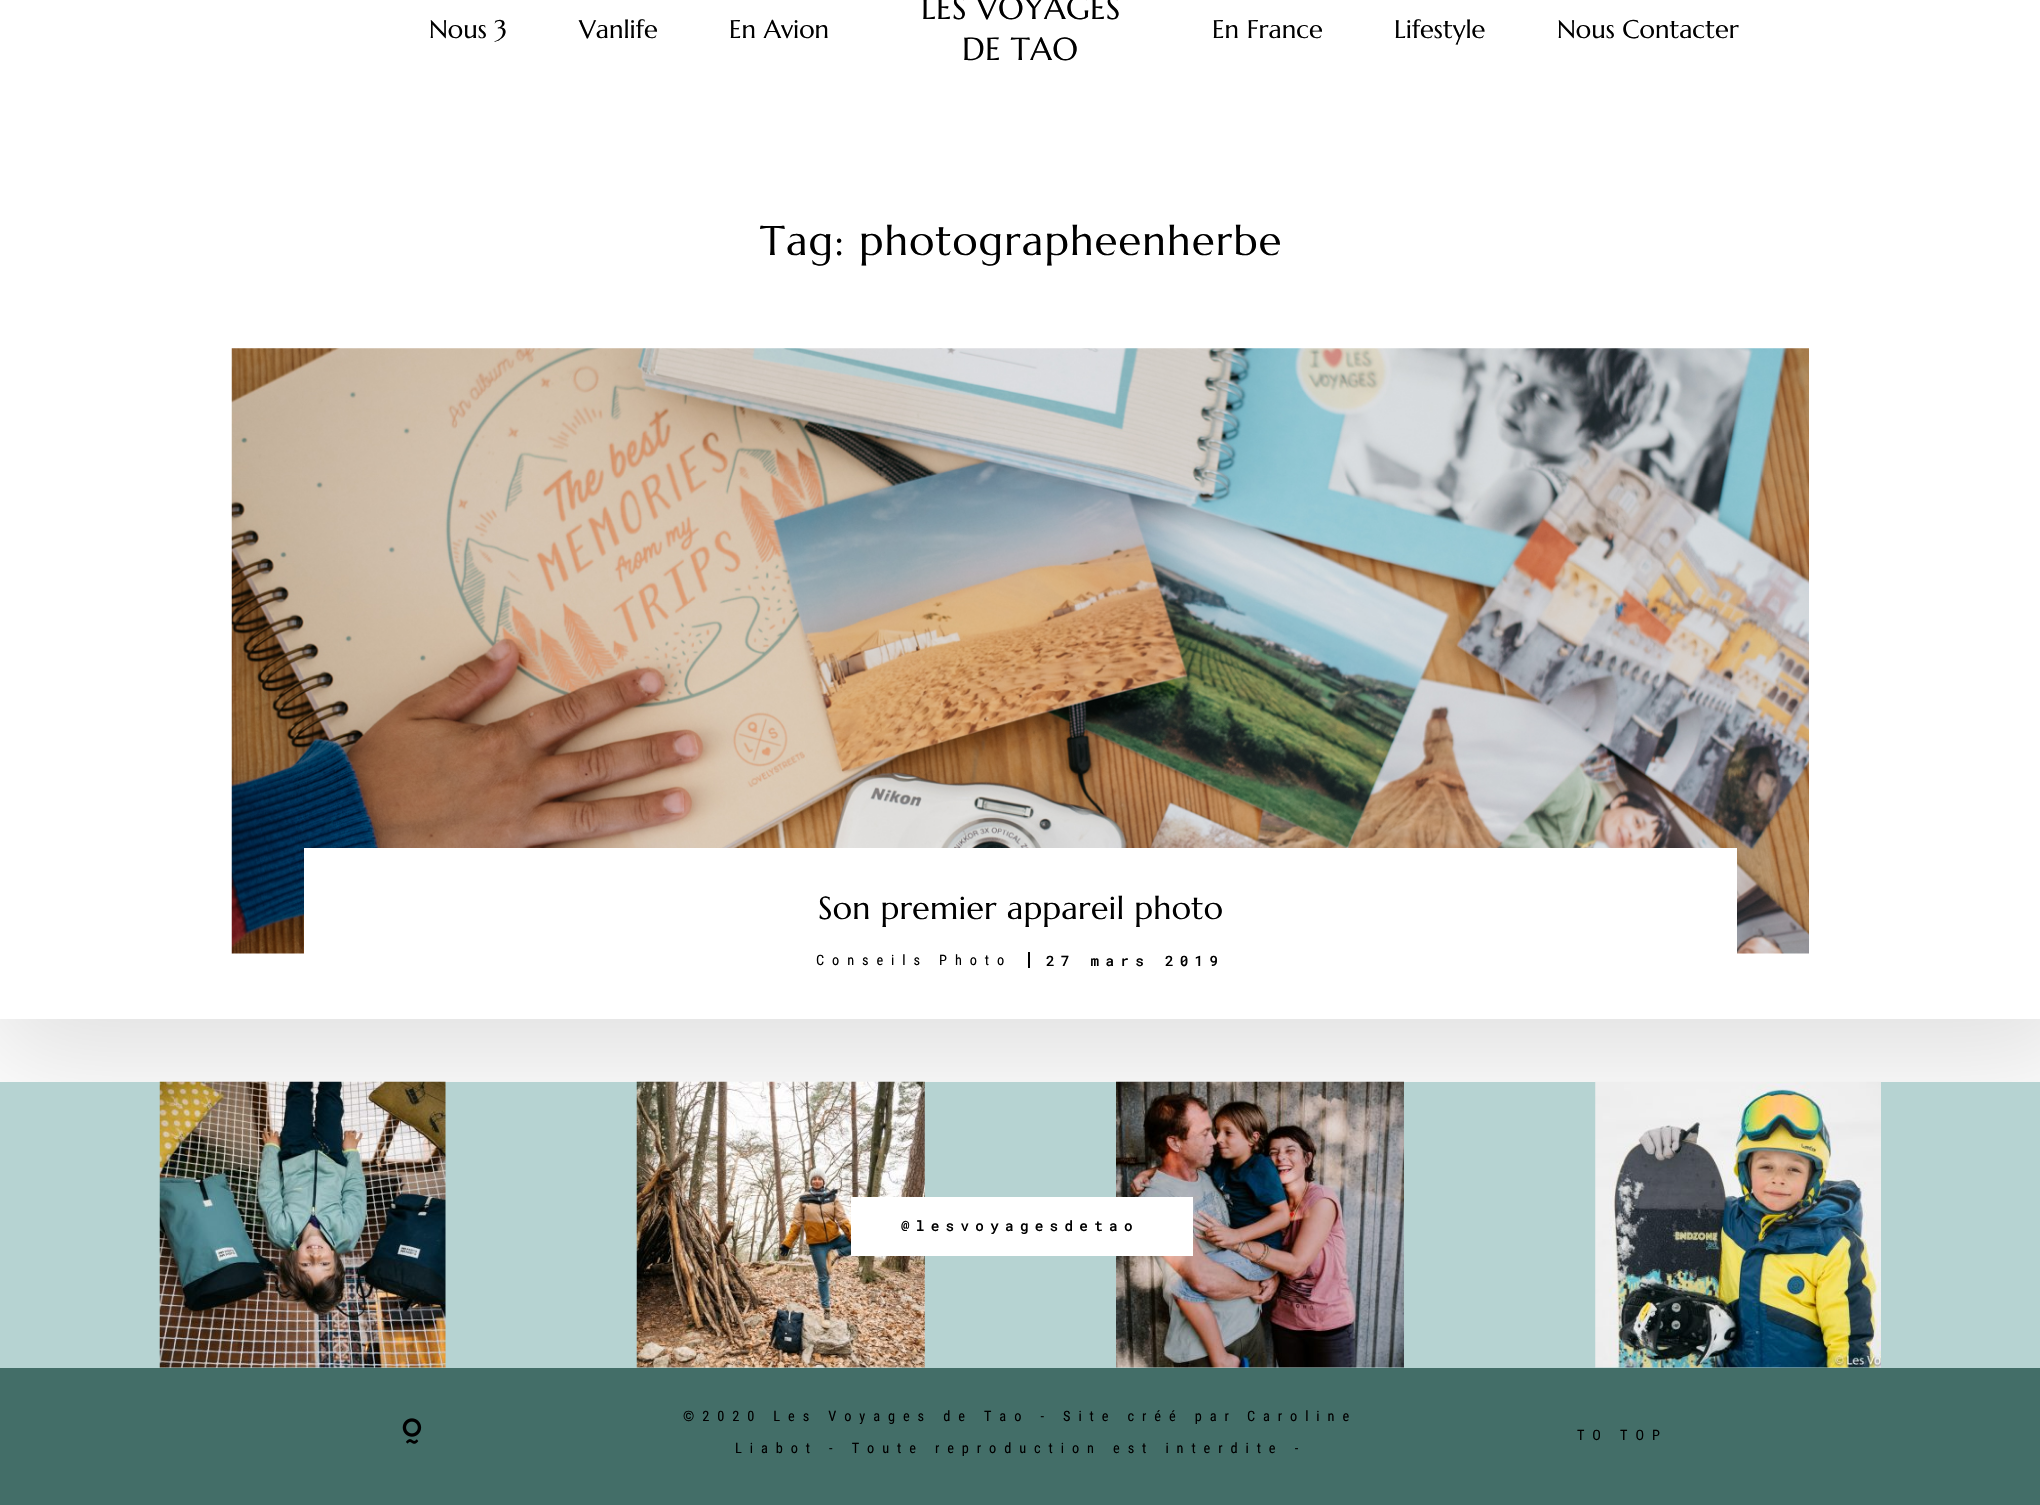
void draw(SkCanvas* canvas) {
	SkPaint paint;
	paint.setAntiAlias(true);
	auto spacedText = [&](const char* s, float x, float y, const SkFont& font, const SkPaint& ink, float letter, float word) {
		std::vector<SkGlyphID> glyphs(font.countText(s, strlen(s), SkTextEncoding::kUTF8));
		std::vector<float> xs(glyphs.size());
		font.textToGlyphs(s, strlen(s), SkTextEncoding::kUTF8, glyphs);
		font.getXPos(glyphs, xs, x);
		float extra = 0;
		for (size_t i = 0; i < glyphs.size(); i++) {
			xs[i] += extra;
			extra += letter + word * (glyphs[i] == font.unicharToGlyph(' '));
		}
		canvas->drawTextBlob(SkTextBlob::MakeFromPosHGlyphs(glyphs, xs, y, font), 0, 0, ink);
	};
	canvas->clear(0xffffffff);
	canvas->save();
	canvas->clipRect(SkRect::MakeXYWH(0, 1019, 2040, 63));
	paint.setColor(0x1f000000);
	paint.setMaskFilter(SkMaskFilter::MakeBlur(kNormal_SkBlurStyle, 55));
	canvas->drawRect(SkRect::MakeXYWH(-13, -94, 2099, 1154), paint);
	paint.setMaskFilter(nullptr);
	canvas->restore();
	SkFont f1(fontMgr->matchFamilyStyle("Marcellus", SkFontStyle::Normal()), 25.5);
	f1.setSubpixel(true);
	paint.setColor(0xff000000);
	canvas->drawString("Nous 3", 429, 38, f1, paint);
	canvas->drawString("Vanlife", 579, 38, f1, paint);
	canvas->drawString("En Avion", 729, 38, f1, paint);
	SkFont f2(fontMgr->matchFamilyStyle("Marcellus", SkFontStyle::Normal()), 31.9);
	f2.setSubpixel(true);
	spacedText("LES VOYAGES", 921, 19, f2, paint, 0.3, 0);
	spacedText("DE TAO", 962, 60, f2, paint, 0.3, 0);
	canvas->drawString("En France", 1212, 38, f1, paint);
	canvas->drawString("Lifestyle", 1394, 38, f1, paint);
	canvas->drawString("Nous Contacter", 1557, 38, f1, paint);
	SkFont f3(fontMgr->matchFamilyStyle("Marcellus", SkFontStyle::Normal()), 41.5);
	f3.setSubpixel(true);
	spacedText("Tag: photographeenherbe", 760, 255, f3, paint, 1.25, 0);
	canvas->drawImageRect(SkImages::DeferredFromEncodedData(SkData::MakeFromFileName("img1.png")), SkRect::MakeXYWH(231, 348, 1578, 606), SkSamplingOptions());
	paint.setColor(0xffffffff);
	canvas->drawRect(SkRect::MakeXYWH(304, 848, 1433, 106), paint);
	paint.setColor(0xff000000);
	spacedText("Son premier appareil photo", 818, 919, f2, paint, 0.3, 0);
	SkFont f4(fontMgr->matchFamilyStyle("Roboto Condensed", SkFontStyle::Normal()), 14.35);
	f4.setSubpixel(true);
	spacedText("Conseils Photo", 816, 965, f4, paint, 7.9, 0);
	canvas->drawRect(SkRect::MakeXYWH(1028, 952, 2, 16), paint);
	SkFont f5(fontMgr->matchFamilyStyle("Roboto Mono", SkFontStyle(500, SkFontStyle::kNormal_Width, SkFontStyle::kUpright_Slant)), 14.35);
	f5.setSubpixel(true);
	spacedText("27 mars 2019", 1046, 966, f5, paint, 6.25, 0);
	paint.setColor(0xffb6d3d2);
	canvas->drawRect(SkRect::MakeXYWH(0, 1082, 2040, 286), paint);
	canvas->drawImageRect(SkImages::DeferredFromEncodedData(SkData::MakeFromFileName("img2.png")), SkRect::MakeXYWH(159, 1081, 287, 287), SkSamplingOptions());
	canvas->drawImageRect(SkImages::DeferredFromEncodedData(SkData::MakeFromFileName("img3.png")), SkRect::MakeXYWH(636, 1081, 289, 287), SkSamplingOptions());
	canvas->drawImageRect(SkImages::DeferredFromEncodedData(SkData::MakeFromFileName("img4.png")), SkRect::MakeXYWH(1116, 1081, 288, 287), SkSamplingOptions());
	paint.setColor(0xffffffff);
	canvas->drawRect(SkRect::MakeXYWH(851, 1197, 342, 59), paint);
	paint.setColor(0xff000000);
	spacedText("@lesvoyagesdetao", 901, 1231, f5, paint, 6.25, 0);
	canvas->drawImageRect(SkImages::DeferredFromEncodedData(SkData::MakeFromFileName("img5.png")), SkRect::MakeXYWH(1595, 1081, 286, 287), SkSamplingOptions());
	paint.setColor(0xff436e68);
	canvas->drawRect(SkRect::MakeXYWH(0, 1368, 2040, 137), paint);
	canvas->drawImageRect(SkImages::DeferredFromEncodedData(SkData::MakeFromFileName("img6.png")), SkRect::MakeXYWH(402, 1418, 20, 26), SkSamplingOptions());
	paint.setColor(0xff000000);
	spacedText("©2020 Les Voyages de Tao - Site créé par", 683, 1421, f4, paint, 7.9, 0);
	spacedText("Caroline", 1247, 1421, f4, paint, 7.9, 0);
	spacedText("Liabot - Toute reproduction est interdite -", 735, 1453, f4, paint, 7.9, 0);
	spacedText("TO TOP", 1577, 1440, f4, paint, 7.9, 0);
}
